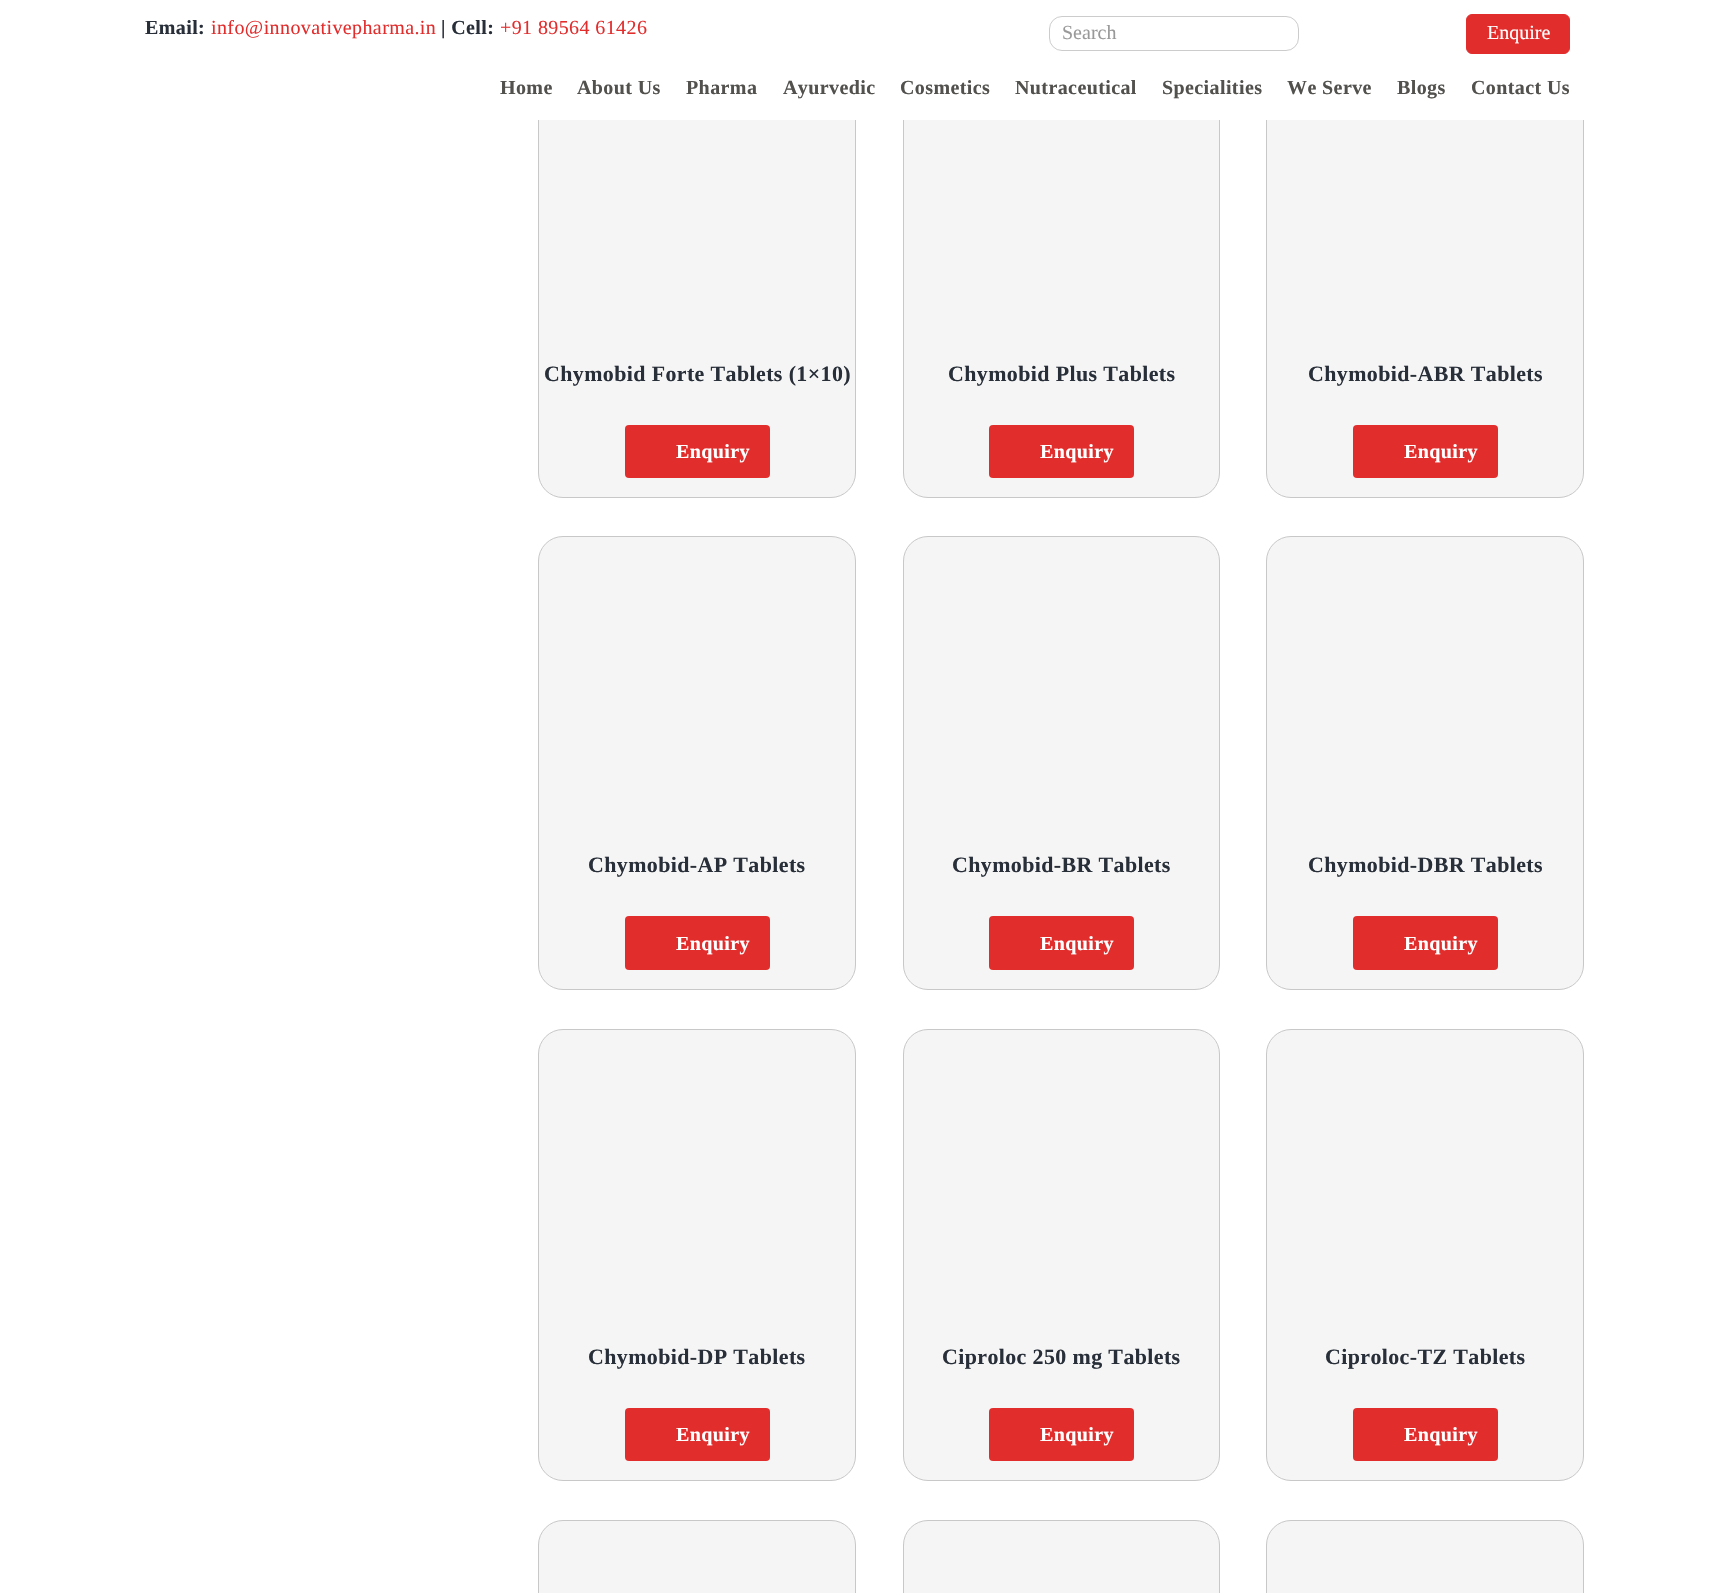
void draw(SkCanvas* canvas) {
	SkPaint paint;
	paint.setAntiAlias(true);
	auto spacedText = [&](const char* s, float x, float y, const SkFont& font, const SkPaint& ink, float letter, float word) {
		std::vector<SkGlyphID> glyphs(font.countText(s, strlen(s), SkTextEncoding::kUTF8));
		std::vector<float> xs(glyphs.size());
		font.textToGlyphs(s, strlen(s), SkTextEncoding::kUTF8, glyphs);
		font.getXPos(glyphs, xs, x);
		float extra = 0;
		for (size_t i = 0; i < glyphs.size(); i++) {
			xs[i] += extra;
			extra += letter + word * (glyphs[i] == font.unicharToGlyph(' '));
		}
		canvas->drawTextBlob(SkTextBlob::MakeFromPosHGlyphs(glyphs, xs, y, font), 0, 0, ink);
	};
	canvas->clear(0xffffffff);
	paint.setColor(0xfff5f5f5);
	canvas->drawRoundRect(SkRect::MakeXYWH(538.5, 45.5, 317, 452), 24.5, 24.5, paint);
	paint.setStroke(true);
	paint.setStrokeWidth(1);
	paint.setColor(0xffc8c8c8);
	canvas->drawRoundRect(SkRect::MakeXYWH(538.5, 45.5, 317, 452), 24.5, 24.5, paint);
	paint.setStroke(false);
	paint.setColor(0xfff5f5f5);
	canvas->drawRoundRect(SkRect::MakeXYWH(903.5, 45.5, 316, 452), 24.5, 24.5, paint);
	paint.setStroke(true);
	paint.setColor(0xffc8c8c8);
	canvas->drawRoundRect(SkRect::MakeXYWH(903.5, 45.5, 316, 452), 24.5, 24.5, paint);
	paint.setStroke(false);
	paint.setColor(0xfff5f5f5);
	canvas->drawRoundRect(SkRect::MakeXYWH(1266.5, 45.5, 317, 452), 24.5, 24.5, paint);
	paint.setStroke(true);
	paint.setColor(0xffc8c8c8);
	canvas->drawRoundRect(SkRect::MakeXYWH(1266.5, 45.5, 317, 452), 24.5, 24.5, paint);
	paint.setStroke(false);
	paint.setColor(0xffffffff);
	canvas->drawRect(SkRect::MakeXYWH(538, 45, 1046, 75), paint);
	SkFont f1(fontMgr->matchFamilyStyle("Liberation Serif", SkFontStyle::Bold()), 20);
	f1.setSubpixel(true);
	paint.setColor(0xff282f39);
	spacedText("Email:", 145, 34, f1, paint, 0.4, 0);
	SkFont f2(fontMgr->matchFamilyStyle("Liberation Serif", SkFontStyle::Normal()), 20);
	f2.setSubpixel(true);
	paint.setColor(0xffe22d2d);
	spacedText("info@innovativepharma.in", 211, 34, f2, paint, 0.4, 0);
	paint.setColor(0xff282f39);
	spacedText("| Cell:", 441, 34, f1, paint, 0.4, 0);
	paint.setColor(0xffe22d2d);
	spacedText("+91 89564 61426", 500, 34, f2, paint, 0.4, 0);
	paint.setStroke(true);
	paint.setColor(0xffcccccc);
	canvas->drawRoundRect(SkRect::MakeXYWH(1049.5, 16.5, 249, 34), 12.5, 12.5, paint);
	paint.setStroke(false);
	paint.setColor(0xff999999);
	canvas->drawString("Search", 1062, 39, f2, paint);
	paint.setColor(0xffe22d2d);
	canvas->drawRoundRect(SkRect::MakeXYWH(1466.5, 14.5, 103, 39), 5.5, 5.5, paint);
	paint.setStroke(true);
	canvas->drawRoundRect(SkRect::MakeXYWH(1466.5, 14.5, 103, 39), 5.5, 5.5, paint);
	paint.setStroke(false);
	paint.setColor(0xffffffff);
	canvas->drawString("Enquire", 1487, 39, f2, paint);
	paint.setColor(0xff52514e);
	spacedText("Home", 500, 94, f1, paint, 0.4, 0);
	spacedText("About Us", 577, 94, f1, paint, 0.4, 0);
	spacedText("Pharma", 686, 94, f1, paint, 0.4, 0);
	spacedText("Ayurvedic", 783, 94, f1, paint, 0.4, 0);
	spacedText("Cosmetics", 900, 94, f1, paint, 0.4, 0);
	spacedText("Nutraceutical", 1015, 94, f1, paint, 0.4, 0);
	spacedText("Specialities", 1162, 94, f1, paint, 0.4, 0);
	spacedText("We Serve", 1287, 94, f1, paint, 0.4, 0);
	spacedText("Blogs", 1397, 94, f1, paint, 0.4, 0);
	spacedText("Contact Us", 1471, 94, f1, paint, 0.4, 0);
	SkFont f3(fontMgr->matchFamilyStyle("Liberation Serif", SkFontStyle::Bold()), 21.9);
	f3.setSubpixel(true);
	paint.setColor(0xff282f39);
	spacedText("Chymobid Forte Tablets (1×10)", 544, 381, f3, paint, 0.4, 0);
	paint.setColor(0xffe22d2d);
	canvas->drawRoundRect(SkRect::MakeXYWH(625, 425, 145, 53), 4, 4, paint);
	paint.setColor(0xffffffff);
	spacedText("Enquiry", 676, 458, f1, paint, 0.4, 0);
	paint.setColor(0xff282f39);
	spacedText("Chymobid Plus Tablets", 948, 381, f3, paint, 0.4, 0);
	paint.setColor(0xffe22d2d);
	canvas->drawRoundRect(SkRect::MakeXYWH(989, 425, 145, 53), 4, 4, paint);
	paint.setColor(0xffffffff);
	spacedText("Enquiry", 1040, 458, f1, paint, 0.4, 0);
	paint.setColor(0xff282f39);
	spacedText("Chymobid-ABR Tablets", 1308, 381, f3, paint, 0.4, 0);
	paint.setColor(0xffe22d2d);
	canvas->drawRoundRect(SkRect::MakeXYWH(1353, 425, 145, 53), 4, 4, paint);
	paint.setColor(0xffffffff);
	spacedText("Enquiry", 1404, 458, f1, paint, 0.4, 0);
	paint.setColor(0xfff5f5f5);
	canvas->drawRoundRect(SkRect::MakeXYWH(538.5, 536.5, 317, 453), 24.5, 24.5, paint);
	paint.setStroke(true);
	paint.setColor(0xffc8c8c8);
	canvas->drawRoundRect(SkRect::MakeXYWH(538.5, 536.5, 317, 453), 24.5, 24.5, paint);
	paint.setStroke(false);
	paint.setColor(0xff282f39);
	spacedText("Chymobid-AP Tablets", 588, 872, f3, paint, 0.4, 0);
	paint.setColor(0xffe22d2d);
	canvas->drawRoundRect(SkRect::MakeXYWH(625, 916, 145, 54), 4, 4, paint);
	paint.setColor(0xffffffff);
	spacedText("Enquiry", 676, 950, f1, paint, 0.4, 0);
	paint.setColor(0xfff5f5f5);
	canvas->drawRoundRect(SkRect::MakeXYWH(903.5, 536.5, 316, 453), 24.5, 24.5, paint);
	paint.setStroke(true);
	paint.setColor(0xffc8c8c8);
	canvas->drawRoundRect(SkRect::MakeXYWH(903.5, 536.5, 316, 453), 24.5, 24.5, paint);
	paint.setStroke(false);
	paint.setColor(0xff282f39);
	spacedText("Chymobid-BR Tablets", 952, 872, f3, paint, 0.4, 0);
	paint.setColor(0xffe22d2d);
	canvas->drawRoundRect(SkRect::MakeXYWH(989, 916, 145, 54), 4, 4, paint);
	paint.setColor(0xffffffff);
	spacedText("Enquiry", 1040, 950, f1, paint, 0.4, 0);
	paint.setColor(0xfff5f5f5);
	canvas->drawRoundRect(SkRect::MakeXYWH(1266.5, 536.5, 317, 453), 24.5, 24.5, paint);
	paint.setStroke(true);
	paint.setColor(0xffc8c8c8);
	canvas->drawRoundRect(SkRect::MakeXYWH(1266.5, 536.5, 317, 453), 24.5, 24.5, paint);
	paint.setStroke(false);
	paint.setColor(0xff282f39);
	spacedText("Chymobid-DBR Tablets", 1308, 872, f3, paint, 0.4, 0);
	paint.setColor(0xffe22d2d);
	canvas->drawRoundRect(SkRect::MakeXYWH(1353, 916, 145, 54), 4, 4, paint);
	paint.setColor(0xffffffff);
	spacedText("Enquiry", 1404, 950, f1, paint, 0.4, 0);
	paint.setColor(0xfff5f5f5);
	canvas->drawRoundRect(SkRect::MakeXYWH(538.5, 1029.5, 317, 451), 24.5, 24.5, paint);
	paint.setStroke(true);
	paint.setColor(0xffc8c8c8);
	canvas->drawRoundRect(SkRect::MakeXYWH(538.5, 1029.5, 317, 451), 24.5, 24.5, paint);
	paint.setStroke(false);
	paint.setColor(0xff282f39);
	spacedText("Chymobid-DP Tablets", 588, 1364, f3, paint, 0.4, 0);
	paint.setColor(0xffe22d2d);
	canvas->drawRoundRect(SkRect::MakeXYWH(625, 1408, 145, 53), 4, 4, paint);
	paint.setColor(0xffffffff);
	spacedText("Enquiry", 676, 1441, f1, paint, 0.4, 0);
	paint.setColor(0xfff5f5f5);
	canvas->drawRoundRect(SkRect::MakeXYWH(903.5, 1029.5, 316, 451), 24.5, 24.5, paint);
	paint.setStroke(true);
	paint.setColor(0xffc8c8c8);
	canvas->drawRoundRect(SkRect::MakeXYWH(903.5, 1029.5, 316, 451), 24.5, 24.5, paint);
	paint.setStroke(false);
	paint.setColor(0xff282f39);
	spacedText("Ciproloc 250 mg Tablets", 942, 1364, f3, paint, 0.4, 0);
	paint.setColor(0xffe22d2d);
	canvas->drawRoundRect(SkRect::MakeXYWH(989, 1408, 145, 53), 4, 4, paint);
	paint.setColor(0xffffffff);
	spacedText("Enquiry", 1040, 1441, f1, paint, 0.4, 0);
	paint.setColor(0xfff5f5f5);
	canvas->drawRoundRect(SkRect::MakeXYWH(1266.5, 1029.5, 317, 451), 24.5, 24.5, paint);
	paint.setStroke(true);
	paint.setColor(0xffc8c8c8);
	canvas->drawRoundRect(SkRect::MakeXYWH(1266.5, 1029.5, 317, 451), 24.5, 24.5, paint);
	paint.setStroke(false);
	paint.setColor(0xff282f39);
	spacedText("Ciproloc-TZ Tablets", 1325, 1364, f3, paint, 0.4, 0);
	paint.setColor(0xffe22d2d);
	canvas->drawRoundRect(SkRect::MakeXYWH(1353, 1408, 145, 53), 4, 4, paint);
	paint.setColor(0xffffffff);
	spacedText("Enquiry", 1404, 1441, f1, paint, 0.4, 0);
	paint.setColor(0xfff5f5f5);
	canvas->drawRoundRect(SkRect::MakeXYWH(538.5, 1520.5, 317, 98), 24.5, 24.5, paint);
	paint.setStroke(true);
	paint.setColor(0xffc8c8c8);
	canvas->drawRoundRect(SkRect::MakeXYWH(538.5, 1520.5, 317, 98), 24.5, 24.5, paint);
	paint.setStroke(false);
	paint.setColor(0xfff5f5f5);
	canvas->drawRoundRect(SkRect::MakeXYWH(903.5, 1520.5, 316, 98), 24.5, 24.5, paint);
	paint.setStroke(true);
	paint.setColor(0xffc8c8c8);
	canvas->drawRoundRect(SkRect::MakeXYWH(903.5, 1520.5, 316, 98), 24.5, 24.5, paint);
	paint.setStroke(false);
	paint.setColor(0xfff5f5f5);
	canvas->drawRoundRect(SkRect::MakeXYWH(1266.5, 1520.5, 317, 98), 24.5, 24.5, paint);
	paint.setStroke(true);
	paint.setColor(0xffc8c8c8);
	canvas->drawRoundRect(SkRect::MakeXYWH(1266.5, 1520.5, 317, 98), 24.5, 24.5, paint);
}
